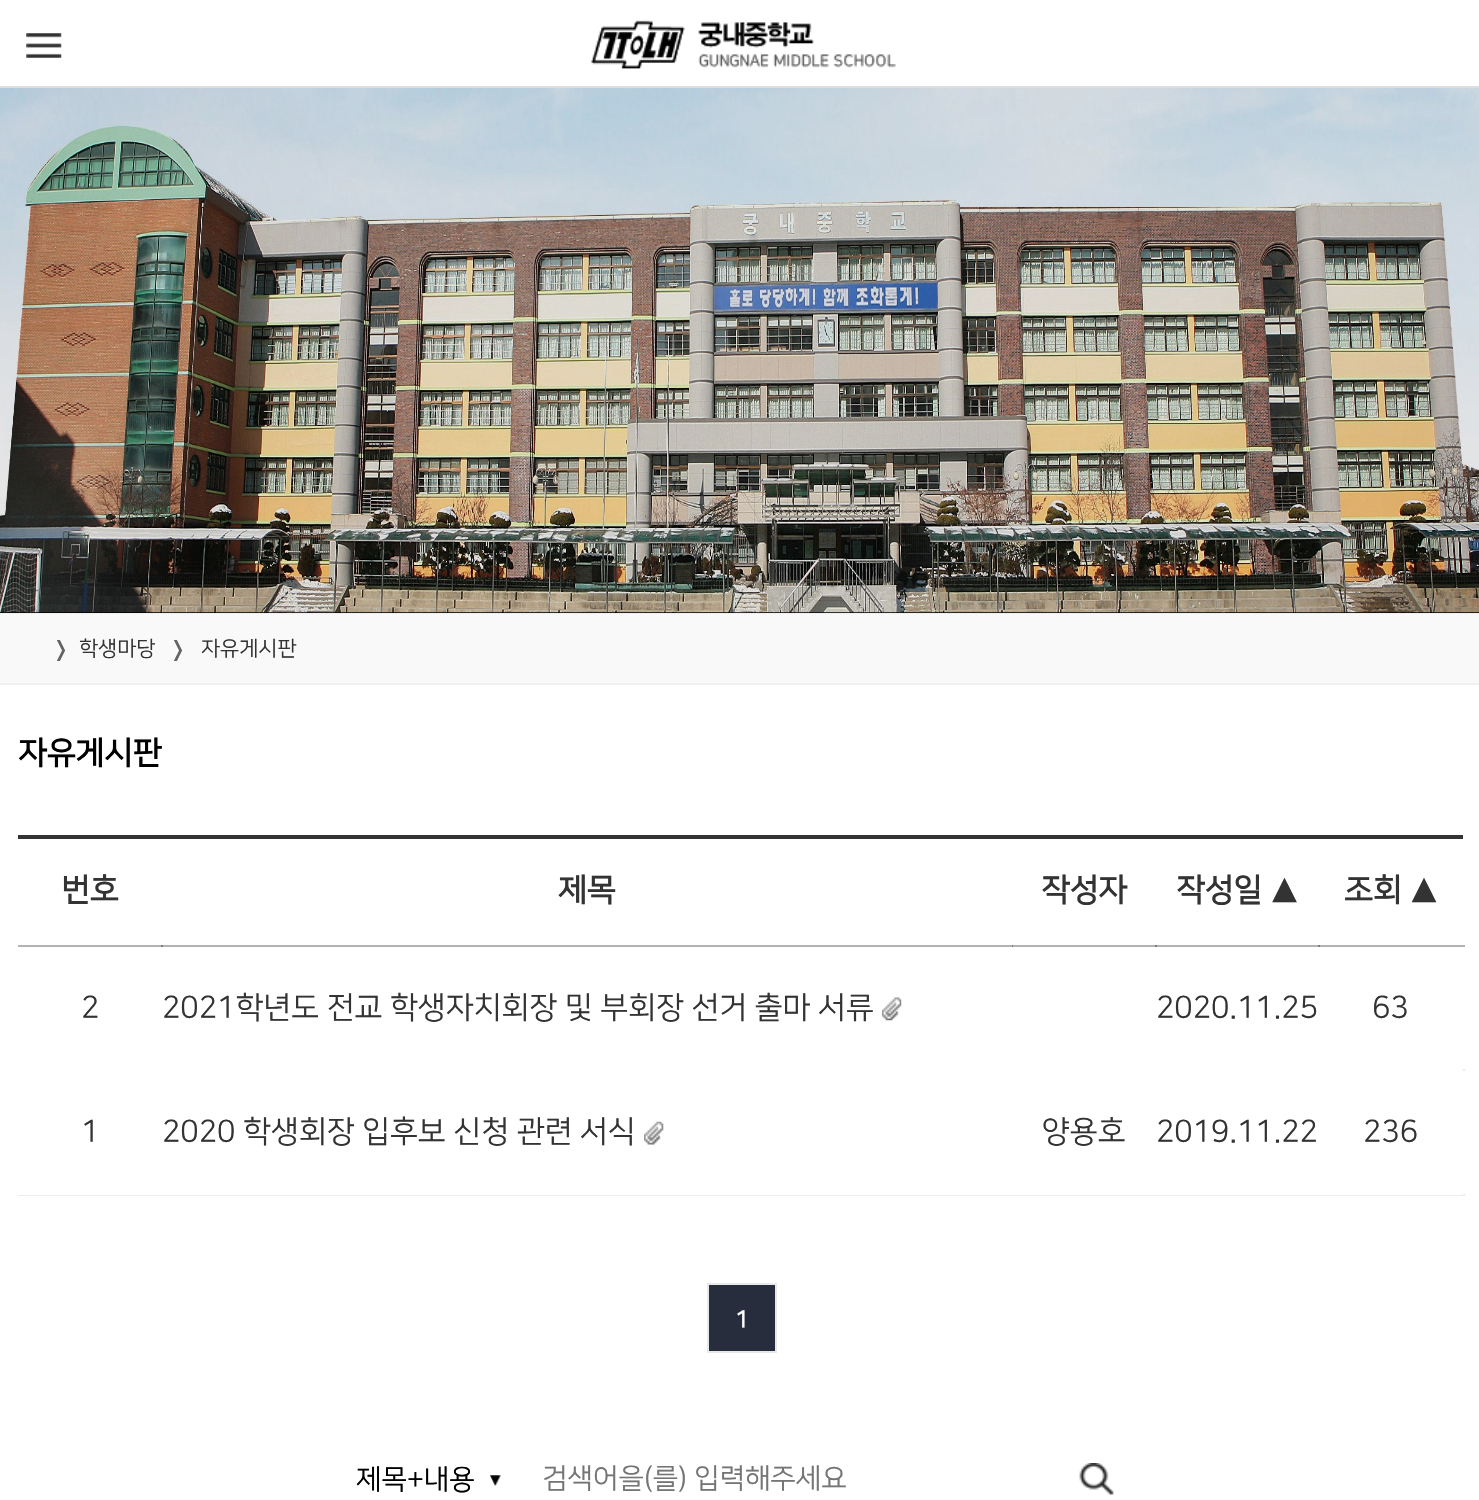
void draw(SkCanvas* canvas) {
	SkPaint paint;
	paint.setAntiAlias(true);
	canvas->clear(0xffffffff);
	paint.setColor(0xffb3b3b3);
	canvas->drawRect(SkRect::MakeXYWH(18, 945, 1447, 2), paint);
	paint.setColor(0xff7d7d7d);
	canvas->drawRect(SkRect::MakeXYWH(161, 945, 2, 2), paint);
	canvas->drawRect(SkRect::MakeXYWH(1012, 945, 1, 2), paint);
	canvas->drawRect(SkRect::MakeXYWH(1155, 945, 2, 2), paint);
	paint.setColor(0xffdddddd);
	canvas->drawRect(SkRect::MakeXYWH(0, 86, 1479, 2), paint);
	canvas->drawImageRect(SkImages::DeferredFromEncodedData(SkData::MakeFromFileName("img1.png")), SkRect::MakeXYWH(591, 20, 305, 49), SkSamplingOptions());
	canvas->drawImageRect(SkImages::DeferredFromEncodedData(SkData::MakeFromFileName("img2.png")), SkRect::MakeXYWH(26, 33, 36, 25), SkSamplingOptions());
	paint.setColor(0xff000000);
	canvas->drawRect(SkRect::MakeXYWH(0, 88, 1479, 525), paint);
	canvas->drawImageRect(SkImages::DeferredFromEncodedData(SkData::MakeFromFileName("img3.png")), SkRect::MakeXYWH(0, 88, 1479, 525), SkSamplingOptions());
	paint.setColor(0xffefefef);
	canvas->drawRect(SkRect::MakeXYWH(0, 613, 1479, 1), paint);
	paint.setColor(0xfff9f9f9);
	canvas->drawRect(SkRect::MakeXYWH(0, 614, 1479, 69), paint);
	paint.setColor(0xfff0f0f0);
	canvas->drawRect(SkRect::MakeXYWH(0, 683, 1479, 2), paint);
	SkFont f1(fontMgr->matchFamilyStyle("DejaVu Sans", SkFontStyle::Normal()), 21);
	f1.setSubpixel(true);
	paint.setColor(0xff646464);
	canvas->drawString("❭", 52, 656, f1, paint);
	SkFont f2(fontMgr->matchFamilyStyle("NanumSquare", SkFontStyle::Normal()), 21);
	f2.setSubpixel(true);
	paint.setColor(0xff333333);
	canvas->drawString("학생마당", 79, 655, f2, paint);
	paint.setColor(0xff646464);
	canvas->drawString("❭", 169, 656, f1, paint);
	paint.setColor(0xff333333);
	canvas->drawString("자유게시판", 201, 655, f2, paint);
	SkFont f3(fontMgr->matchFamilyStyle("NanumSquare", SkFontStyle::Bold()), 31.5);
	f3.setSubpixel(true);
	paint.setColor(0xff000000);
	canvas->drawString("자유게시판", 18, 763, f3, paint);
	paint.setColor(0xff333333);
	canvas->drawRect(SkRect::MakeXYWH(18, 835, 1445, 4), paint);
	canvas->drawString("번호", 61, 900, f3, paint);
	canvas->drawString("제목", 558, 900, f3, paint);
	canvas->drawString("작성자", 1041, 900, f3, paint);
	canvas->drawString("작성일 ▲", 1176, 900, f3, paint);
	paint.setColor(0xff7d7d7d);
	canvas->drawRect(SkRect::MakeXYWH(1318, 945, 2, 2), paint);
	paint.setColor(0xff333333);
	canvas->drawString("조회 ▲", 1344, 900, f3, paint);
	SkFont f4(fontMgr->matchFamilyStyle("NanumSquare", SkFontStyle::Normal()), 30.6);
	f4.setSubpixel(true);
	canvas->drawString("2", 81, 1017, f4, paint);
	canvas->drawString("2021학년도 전교 학생자치회장 및 부회장 선거 출마 서류", 162, 1017, f4, paint);
	canvas->drawImageRect(SkImages::DeferredFromEncodedData(SkData::MakeFromFileName("img4.png")), SkRect::MakeXYWH(882, 997, 20, 24), SkSamplingOptions());
	canvas->drawString("2020.11.25", 1156, 1017, f4, paint);
	paint.setColor(0xffececec);
	canvas->drawRect(SkRect::MakeXYWH(1463, 1069, 2, 2), paint);
	paint.setColor(0xff333333);
	canvas->drawString("63", 1372, 1017, f4, paint);
	canvas->drawString("1", 81, 1141, f4, paint);
	canvas->drawString("2020 학생회장 입후보 신청 관련 서식", 162, 1141, f4, paint);
	canvas->drawImageRect(SkImages::DeferredFromEncodedData(SkData::MakeFromFileName("img5.png")), SkRect::MakeXYWH(644, 1121, 20, 24), SkSamplingOptions());
	canvas->drawString("양용호", 1042, 1141, f4, paint);
	paint.setColor(0xffececec);
	canvas->drawRect(SkRect::MakeXYWH(1318, 1194, 147, 2), paint);
	canvas->drawRect(SkRect::MakeXYWH(18, 1195, 1302, 1), paint);
	paint.setColor(0xff333333);
	canvas->drawString("2019.11.22", 1156, 1141, f4, paint);
	paint.setColor(0xffffffff);
	canvas->drawRect(SkRect::MakeXYWH(1318, 1194, 145, 1), paint);
	paint.setColor(0xff333333);
	canvas->drawString("236", 1363, 1141, f4, paint);
	paint.setColor(0xff272d3d);
	canvas->drawRect(SkRect::MakeXYWH(708, 1284, 68, 68), paint);
	paint.setStroke(true);
	paint.setStrokeWidth(2);
	paint.setColor(0xffe8e8e8);
	canvas->drawRect(SkRect::MakeXYWH(708, 1284, 68, 68), paint);
	SkFont f5(fontMgr->matchFamilyStyle("NanumSquare", SkFontStyle::Bold()), 23);
	f5.setSubpixel(true);
	paint.setStroke(false);
	paint.setColor(0xffffffff);
	canvas->drawString("1", 735, 1327, f5, paint);
	canvas->drawImageRect(SkImages::DeferredFromEncodedData(SkData::MakeFromFileName("img6.png")), SkRect::MakeXYWH(490, 1475, 11, 11), SkSamplingOptions());
	SkFont f6(fontMgr->matchFamilyStyle("NanumSquare", SkFontStyle::Normal()), 28);
	f6.setSubpixel(true);
	paint.setColor(0xff000000);
	canvas->drawString("제목+내용", 356, 1488, f6, paint);
	paint.setColor(0xff757575);
	canvas->drawString("검색어을(를) 입력해주세요", 542, 1487, f6, paint);
	canvas->drawImageRect(SkImages::DeferredFromEncodedData(SkData::MakeFromFileName("img7.png")), SkRect::MakeXYWH(1079, 1463, 35, 32), SkSamplingOptions());
}
